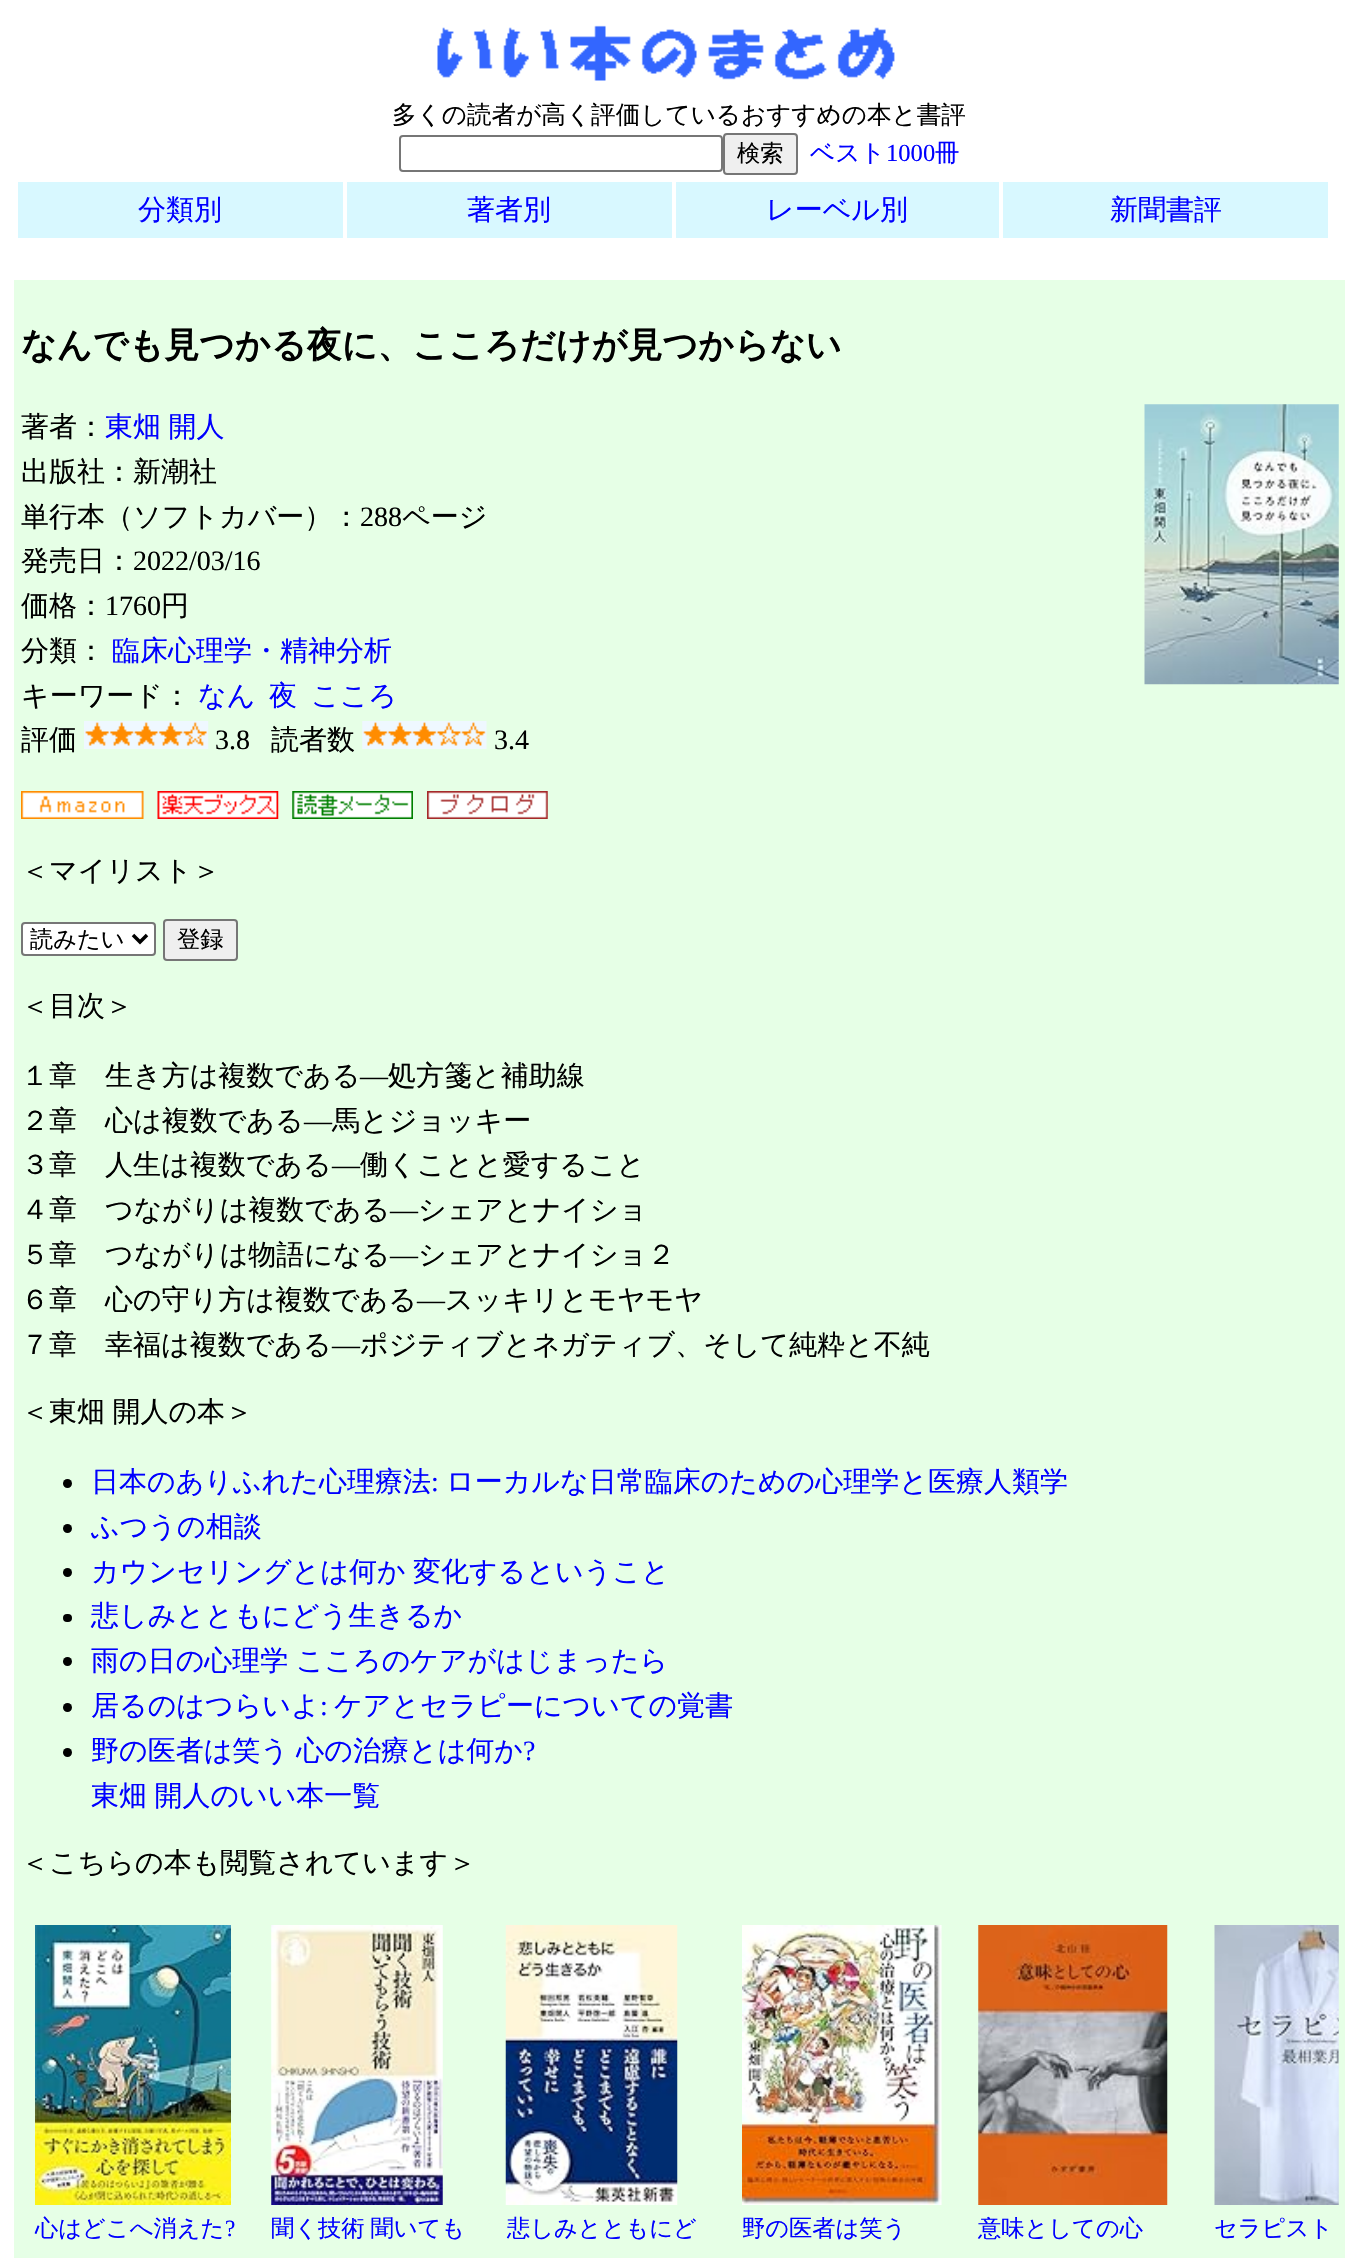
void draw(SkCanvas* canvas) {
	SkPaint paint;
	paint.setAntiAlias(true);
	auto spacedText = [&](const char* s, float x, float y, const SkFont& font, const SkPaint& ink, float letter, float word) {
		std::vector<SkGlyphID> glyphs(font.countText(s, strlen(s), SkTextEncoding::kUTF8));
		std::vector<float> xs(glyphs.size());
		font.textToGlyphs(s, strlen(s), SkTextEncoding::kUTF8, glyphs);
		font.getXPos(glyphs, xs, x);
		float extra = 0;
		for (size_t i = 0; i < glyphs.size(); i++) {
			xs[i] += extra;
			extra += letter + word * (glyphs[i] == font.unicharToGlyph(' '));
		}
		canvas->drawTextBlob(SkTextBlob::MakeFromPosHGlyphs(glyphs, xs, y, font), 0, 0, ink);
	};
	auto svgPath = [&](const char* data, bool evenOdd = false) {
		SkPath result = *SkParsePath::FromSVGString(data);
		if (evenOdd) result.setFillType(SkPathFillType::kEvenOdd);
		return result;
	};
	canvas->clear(0xffffffff);
	canvas->drawImageRect(SkImages::DeferredFromEncodedData(SkData::MakeFromFileName("img1.png")), SkRect::MakeXYWH(437, 25, 458, 56), SkSamplingOptions());
	SkFont f1(fontMgr->matchFamilyStyle("WenQuanYi Zen Hei", SkFontStyle(500, SkFontStyle::kNormal_Width, SkFontStyle::kUpright_Slant)), 24.6);
	f1.setSubpixel(true);
	paint.setColor(0xff000000);
	canvas->drawString("多くの読者が高く評価しているおすすめの本と書評", 392, 123, f1, paint);
	paint.setStroke(true);
	paint.setStrokeWidth(2);
	paint.setColor(0xff767676);
	canvas->drawRoundRect(SkRect::MakeXYWH(400, 136, 322, 35), 3, 3, paint);
	paint.setStroke(false);
	paint.setColor(0xffefefef);
	canvas->drawRoundRect(SkRect::MakeXYWH(724, 134, 73, 40), 3, 3, paint);
	paint.setStroke(true);
	paint.setColor(0xff767676);
	canvas->drawRoundRect(SkRect::MakeXYWH(724, 134, 73, 40), 3, 3, paint);
	SkFont f2(fontMgr->matchFamilyStyle("WenQuanYi Zen Hei", SkFontStyle(500, SkFontStyle::kNormal_Width, SkFontStyle::kUpright_Slant)), 23.25);
	f2.setSubpixel(true);
	paint.setStroke(false);
	paint.setColor(0xff000000);
	canvas->drawString("検索", 737, 161, f2, paint);
	paint.setColor(0xff0000ff);
	canvas->drawString("ベスト", 810, 161, f1, paint);
	SkFont f3(fontMgr->matchFamilyStyle("Liberation Serif", SkFontStyle::Normal()), 24.6);
	f3.setSubpixel(true);
	canvas->drawString("1000", 886, 161, f3, paint);
	canvas->drawString("冊", 935, 161, f1, paint);
	paint.setColor(0xffd8f8ff);
	canvas->drawRect(SkRect::MakeXYWH(18, 182, 325, 56), paint);
	SkFont f4(fontMgr->matchFamilyStyle("WenQuanYi Zen Hei", SkFontStyle(500, SkFontStyle::kNormal_Width, SkFontStyle::kUpright_Slant)), 28);
	f4.setSubpixel(true);
	paint.setColor(0xff0000ff);
	canvas->drawString("分類別", 138, 219, f4, paint);
	paint.setColor(0xffd8f8ff);
	canvas->drawRect(SkRect::MakeXYWH(347, 182, 325, 56), paint);
	paint.setColor(0xff0000ff);
	canvas->drawString("著者別", 467, 219, f4, paint);
	paint.setColor(0xffd8f8ff);
	canvas->drawRect(SkRect::MakeXYWH(676, 182, 323, 56), paint);
	paint.setColor(0xff0000ff);
	canvas->drawString("レーベル別", 766, 219, f4, paint);
	paint.setColor(0xffd8f8ff);
	canvas->drawRect(SkRect::MakeXYWH(1003, 182, 325, 56), paint);
	paint.setColor(0xff0000ff);
	canvas->drawString("新聞書評", 1110, 219, f4, paint);
	paint.setColor(0xffe6ffe6);
	canvas->drawRect(SkRect::MakeXYWH(14, 280, 1331, 1978), paint);
	SkFont f5(fontMgr->matchFamilyStyle("WenQuanYi Zen Hei", SkFontStyle::Bold()), 35);
	f5.setSubpixel(true);
	paint.setColor(0xff000000);
	canvas->drawString("なんでも見つかる夜に、こころだけが見つからない", 21, 357, f5, paint);
	canvas->drawString("著者：", 21, 436, f4, paint);
	paint.setColor(0xff0000ff);
	spacedText("東畑 開人", 105, 436, f4, paint, 0, -1);
	paint.setColor(0xff000000);
	canvas->drawString("出版社：新潮社", 21, 481, f4, paint);
	canvas->drawString("単行本（ソフトカバー）：", 21, 526, f4, paint);
	SkFont f6(fontMgr->matchFamilyStyle("Liberation Serif", SkFontStyle::Normal()), 28);
	f6.setSubpixel(true);
	canvas->drawString("288", 360, 526, f6, paint);
	canvas->drawString("ページ", 402, 526, f4, paint);
	canvas->drawString("発売日：", 21, 570, f4, paint);
	canvas->drawString("2022/03/16", 133, 570, f6, paint);
	canvas->drawString("価格：", 21, 615, f4, paint);
	canvas->drawString("1760", 105, 615, f6, paint);
	canvas->drawString("円", 161, 615, f4, paint);
	canvas->drawString("分類：", 21, 660, f4, paint);
	paint.setColor(0xff0000ff);
	canvas->drawString("臨床心理学・精神分析", 112, 660, f4, paint);
	paint.setColor(0xff000000);
	canvas->drawString("キーワード：", 21, 705, f4, paint);
	paint.setColor(0xff0000ff);
	canvas->drawString("なん", 198, 705, f4, paint);
	canvas->drawString("夜", 269, 705, f4, paint);
	canvas->drawString("こころ", 311, 705, f4, paint);
	paint.setColor(0xff000000);
	canvas->drawString("評価", 21, 749, f4, paint);
	canvas->drawImageRect(SkImages::DeferredFromEncodedData(SkData::MakeFromFileName("img2.png")), SkRect::MakeXYWH(84, 721, 125, 28), SkSamplingOptions());
	canvas->drawString("3.8", 215, 749, f6, paint);
	canvas->drawString("読者数", 271, 749, f4, paint);
	canvas->drawImageRect(SkImages::DeferredFromEncodedData(SkData::MakeFromFileName("img3.png")), SkRect::MakeXYWH(362, 721, 125, 28), SkSamplingOptions());
	canvas->drawString("3.4", 494, 749, f6, paint);
	canvas->drawImageRect(SkImages::DeferredFromEncodedData(SkData::MakeFromFileName("img4.png")), SkRect::MakeXYWH(1144, 404, 195, 281), SkSamplingOptions());
	canvas->drawImageRect(SkImages::DeferredFromEncodedData(SkData::MakeFromFileName("img5.png")), SkRect::MakeXYWH(21, 791, 123, 28), SkSamplingOptions());
	canvas->drawImageRect(SkImages::DeferredFromEncodedData(SkData::MakeFromFileName("img6.png")), SkRect::MakeXYWH(157, 791, 122, 28), SkSamplingOptions());
	canvas->drawImageRect(SkImages::DeferredFromEncodedData(SkData::MakeFromFileName("img7.png")), SkRect::MakeXYWH(292, 791, 121, 28), SkSamplingOptions());
	canvas->drawImageRect(SkImages::DeferredFromEncodedData(SkData::MakeFromFileName("img8.png")), SkRect::MakeXYWH(427, 791, 121, 28), SkSamplingOptions());
	canvas->drawString("＜マイリスト＞", 21, 880, f4, paint);
	paint.setColor(0xffffffff);
	canvas->drawRoundRect(SkRect::MakeXYWH(22, 923, 133, 32), 3, 3, paint);
	paint.setStroke(true);
	paint.setColor(0xff767676);
	canvas->drawRoundRect(SkRect::MakeXYWH(22, 923, 133, 32), 3, 3, paint);
	paint.setStrokeWidth(3.5);
	paint.setColor(0xff000000);
	canvas->drawPath(svgPath("M133 935L140 942L147 935"), paint);
	paint.setStroke(false);
	canvas->drawString("読みたい", 30, 947, f2, paint);
	paint.setColor(0xffefefef);
	canvas->drawRoundRect(SkRect::MakeXYWH(164, 920, 73, 40), 3, 3, paint);
	paint.setStroke(true);
	paint.setStrokeWidth(2);
	paint.setColor(0xff767676);
	canvas->drawRoundRect(SkRect::MakeXYWH(164, 920, 73, 40), 3, 3, paint);
	paint.setStroke(false);
	paint.setColor(0xff000000);
	canvas->drawString("登録", 177, 947, f2, paint);
	canvas->drawString("＜目次＞", 21, 1015, f4, paint);
	canvas->drawString("１章　生き方は複数である", 21, 1085, f4, paint);
	canvas->drawString("―", 360, 1085, f6, paint);
	canvas->drawString("処方箋と補助線", 388, 1085, f4, paint);
	canvas->drawString("２章　心は複数である", 21, 1130, f4, paint);
	canvas->drawString("―", 304, 1130, f6, paint);
	canvas->drawString("馬とジョッキー", 332, 1130, f4, paint);
	canvas->drawString("３章　人生は複数である", 21, 1174, f4, paint);
	canvas->drawString("―", 332, 1174, f6, paint);
	canvas->drawString("働くことと愛すること", 360, 1174, f4, paint);
	canvas->drawString("４章　つながりは複数である", 21, 1219, f4, paint);
	canvas->drawString("―", 390, 1219, f6, paint);
	canvas->drawString("シェアとナイショ", 418, 1219, f4, paint);
	canvas->drawString("５章　つながりは物語になる", 21, 1264, f4, paint);
	canvas->drawString("―", 390, 1264, f6, paint);
	canvas->drawString("シェアとナイショ２", 418, 1264, f4, paint);
	canvas->drawString("６章　心の守り方は複数である", 21, 1309, f4, paint);
	canvas->drawString("―", 417, 1309, f6, paint);
	canvas->drawString("スッキリとモヤモヤ", 445, 1309, f4, paint);
	canvas->drawString("７章　幸福は複数である", 21, 1354, f4, paint);
	canvas->drawString("―", 332, 1354, f6, paint);
	canvas->drawString("ポジティブとネガティブ、そして純粋と不純", 360, 1354, f4, paint);
	spacedText("＜東畑 開人の本＞", 21, 1421, f4, paint, 0, -1);
	canvas->drawCircle(67.5, 1483.5, 4.5, paint);
	paint.setColor(0xff0000ff);
	canvas->drawString("日本のありふれた心理療法", 91, 1491, f4, paint);
	canvas->drawString(":", 431, 1491, f6, paint);
	canvas->drawString("ローカルな日常臨床のための心理学と医療人類学", 446, 1491, f4, paint);
	paint.setColor(0xff000000);
	canvas->drawCircle(67.5, 1528.5, 4.5, paint);
	paint.setColor(0xff0000ff);
	canvas->drawString("ふつうの相談", 91, 1536, f4, paint);
	paint.setColor(0xff000000);
	canvas->drawCircle(67.5, 1572.5, 4.5, paint);
	paint.setColor(0xff0000ff);
	spacedText("カウンセリングとは何か 変化するということ", 91, 1581, f4, paint, 0, -1);
	paint.setColor(0xff000000);
	canvas->drawRoundRect(SkRect::MakeXYWH(63, 1614, 9, 8), 4, 4, paint);
	paint.setColor(0xff0000ff);
	canvas->drawString("悲しみとともにどう生きるか", 91, 1625, f4, paint);
	paint.setColor(0xff000000);
	canvas->drawCircle(67.5, 1661.5, 4.5, paint);
	paint.setColor(0xff0000ff);
	spacedText("雨の日の心理学 こころのケアがはじまったら", 91, 1670, f4, paint, 0, -1);
	paint.setColor(0xff000000);
	canvas->drawCircle(67.5, 1707.5, 4.5, paint);
	paint.setColor(0xff0000ff);
	canvas->drawString("居るのはつらいよ", 91, 1715, f4, paint);
	canvas->drawString(":", 320, 1715, f6, paint);
	canvas->drawString("ケアとセラピーについての覚書", 334, 1715, f4, paint);
	paint.setColor(0xff000000);
	canvas->drawCircle(67.5, 1752.5, 4.5, paint);
	paint.setColor(0xff0000ff);
	spacedText("野の医者は笑う 心の治療とは何か", 91, 1760, f4, paint, 0, -1);
	canvas->drawString("?", 523, 1760, f6, paint);
	spacedText("東畑 開人のいい本一覧", 91, 1805, f4, paint, 0, -1);
	paint.setColor(0xff000000);
	canvas->drawString("＜こちらの本も閲覧されています＞", 21, 1872, f4, paint);
	canvas->drawImageRect(SkImages::DeferredFromEncodedData(SkData::MakeFromFileName("img9.png")), SkRect::MakeXYWH(35, 1925, 196, 280), SkSamplingOptions());
	paint.setColor(0xff0000ff);
	canvas->drawString("心はどこへ消えた", 35, 2236, f2, paint);
	SkFont f7(fontMgr->matchFamilyStyle("Liberation Serif", SkFontStyle::Normal()), 23.25);
	f7.setSubpixel(true);
	canvas->drawString("?", 225, 2236, f7, paint);
	canvas->drawImageRect(SkImages::DeferredFromEncodedData(SkData::MakeFromFileName("img10.png")), SkRect::MakeXYWH(271, 1925, 172, 280), SkSamplingOptions());
	spacedText("聞く技術 聞いても", 271, 2236, f2, paint, 0, -1);
	canvas->drawImageRect(SkImages::DeferredFromEncodedData(SkData::MakeFromFileName("img11.png")), SkRect::MakeXYWH(505, 1925, 173, 280), SkSamplingOptions());
	canvas->drawString("悲しみとともにど", 507, 2236, f2, paint);
	canvas->drawImageRect(SkImages::DeferredFromEncodedData(SkData::MakeFromFileName("img12.png")), SkRect::MakeXYWH(742, 1925, 200, 280), SkSamplingOptions());
	canvas->drawString("野の医者は笑う", 742, 2236, f2, paint);
	canvas->drawImageRect(SkImages::DeferredFromEncodedData(SkData::MakeFromFileName("img13.png")), SkRect::MakeXYWH(978, 1925, 190, 280), SkSamplingOptions());
	canvas->drawString("意味としての心", 978, 2236, f2, paint);
	canvas->drawImageRect(SkImages::DeferredFromEncodedData(SkData::MakeFromFileName("img14.png")), SkRect::MakeXYWH(1214, 1925, 125, 280), SkSamplingOptions());
	canvas->drawString("セラピスト", 1214, 2236, f2, paint);
}
